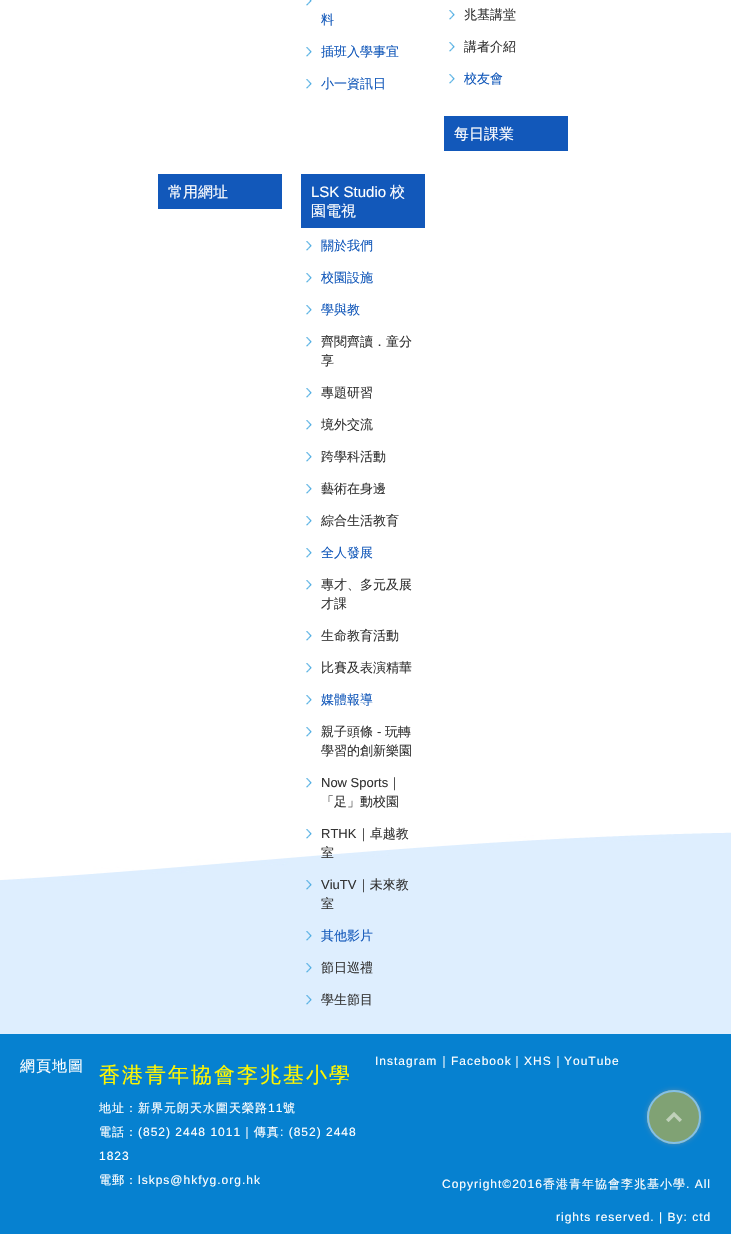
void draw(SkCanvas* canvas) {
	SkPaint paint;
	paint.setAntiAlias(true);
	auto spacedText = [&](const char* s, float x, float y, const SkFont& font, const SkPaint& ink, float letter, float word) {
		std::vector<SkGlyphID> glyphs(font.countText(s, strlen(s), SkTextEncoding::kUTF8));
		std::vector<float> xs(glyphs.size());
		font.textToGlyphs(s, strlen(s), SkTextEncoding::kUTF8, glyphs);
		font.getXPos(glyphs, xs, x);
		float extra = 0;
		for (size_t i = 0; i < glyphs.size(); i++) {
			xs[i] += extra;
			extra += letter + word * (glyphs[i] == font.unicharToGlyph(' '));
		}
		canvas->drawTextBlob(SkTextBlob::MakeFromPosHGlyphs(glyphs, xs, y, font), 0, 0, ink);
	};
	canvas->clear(0xffffffff);
	canvas->drawImageRect(SkImages::DeferredFromEncodedData(SkData::MakeFromFileName("img1.png")), SkRect::MakeXYWH(0, 832, 731, 202), SkSamplingOptions());
	canvas->drawImageRect(SkImages::DeferredFromEncodedData(SkData::MakeFromFileName("img2.png")), SkRect::MakeXYWH(306, 0, 6, 6), SkSamplingOptions());
	SkFont f1(fontMgr->matchFamilyStyle("WenQuanYi Zen Hei", SkFontStyle(500, SkFontStyle::kNormal_Width, SkFontStyle::kUpright_Slant)), 13);
	f1.setSubpixel(true);
	paint.setColor(0xff1258ba);
	canvas->drawString("料", 321, 24, f1, paint);
	canvas->drawImageRect(SkImages::DeferredFromEncodedData(SkData::MakeFromFileName("img3.png")), SkRect::MakeXYWH(306, 47, 6, 10), SkSamplingOptions());
	canvas->drawString("插班入學事宜", 321, 56, f1, paint);
	canvas->drawImageRect(SkImages::DeferredFromEncodedData(SkData::MakeFromFileName("img3.png")), SkRect::MakeXYWH(306, 79, 6, 10), SkSamplingOptions());
	canvas->drawString("小一資訊日", 321, 88, f1, paint);
	canvas->drawImageRect(SkImages::DeferredFromEncodedData(SkData::MakeFromFileName("img4.png")), SkRect::MakeXYWH(449, 10, 6, 10), SkSamplingOptions());
	paint.setColor(0xff333333);
	canvas->drawString("兆基講堂", 464, 19, f1, paint);
	canvas->drawImageRect(SkImages::DeferredFromEncodedData(SkData::MakeFromFileName("img4.png")), SkRect::MakeXYWH(449, 42, 6, 10), SkSamplingOptions());
	canvas->drawString("講者介紹", 464, 51, f1, paint);
	canvas->drawImageRect(SkImages::DeferredFromEncodedData(SkData::MakeFromFileName("img4.png")), SkRect::MakeXYWH(449, 74, 6, 10), SkSamplingOptions());
	paint.setColor(0xff1258ba);
	canvas->drawString("校友會", 464, 83, f1, paint);
	canvas->drawRect(SkRect::MakeXYWH(444, 116, 124, 35), paint);
	SkFont f2(fontMgr->matchFamilyStyle("WenQuanYi Zen Hei", SkFontStyle(500, SkFontStyle::kNormal_Width, SkFontStyle::kUpright_Slant)), 15);
	f2.setSubpixel(true);
	paint.setColor(0xffffffff);
	canvas->drawString("每日課業", 454, 139, f2, paint);
	paint.setColor(0xff1258ba);
	canvas->drawRect(SkRect::MakeXYWH(158, 174, 124, 35), paint);
	paint.setColor(0xffffffff);
	canvas->drawString("常用網址", 168, 197, f2, paint);
	paint.setColor(0xff1258ba);
	canvas->drawRect(SkRect::MakeXYWH(301, 174, 124, 54), paint);
	SkFont f3(fontMgr->matchFamilyStyle("Liberation Sans", SkFontStyle::Normal()), 15);
	f3.setSubpixel(true);
	paint.setColor(0xffffffff);
	canvas->drawString("LSK Studio", 311, 197, f3, paint);
	canvas->drawString("校", 390, 197, f2, paint);
	canvas->drawString("園電視", 311, 216, f2, paint);
	canvas->drawImageRect(SkImages::DeferredFromEncodedData(SkData::MakeFromFileName("img3.png")), SkRect::MakeXYWH(306, 241, 6, 10), SkSamplingOptions());
	paint.setColor(0xff1258ba);
	canvas->drawString("關於我們", 321, 250, f1, paint);
	canvas->drawImageRect(SkImages::DeferredFromEncodedData(SkData::MakeFromFileName("img3.png")), SkRect::MakeXYWH(306, 273, 6, 10), SkSamplingOptions());
	canvas->drawString("校園設施", 321, 282, f1, paint);
	canvas->drawImageRect(SkImages::DeferredFromEncodedData(SkData::MakeFromFileName("img3.png")), SkRect::MakeXYWH(306, 305, 6, 10), SkSamplingOptions());
	canvas->drawString("學與教", 321, 314, f1, paint);
	canvas->drawImageRect(SkImages::DeferredFromEncodedData(SkData::MakeFromFileName("img3.png")), SkRect::MakeXYWH(306, 337, 6, 10), SkSamplingOptions());
	paint.setColor(0xff333333);
	canvas->drawString("齊閱齊讀．童分", 321, 346, f1, paint);
	canvas->drawString("享", 321, 365, f1, paint);
	canvas->drawImageRect(SkImages::DeferredFromEncodedData(SkData::MakeFromFileName("img3.png")), SkRect::MakeXYWH(306, 388, 6, 10), SkSamplingOptions());
	canvas->drawString("專題研習", 321, 397, f1, paint);
	canvas->drawImageRect(SkImages::DeferredFromEncodedData(SkData::MakeFromFileName("img3.png")), SkRect::MakeXYWH(306, 420, 6, 10), SkSamplingOptions());
	canvas->drawString("境外交流", 321, 429, f1, paint);
	canvas->drawImageRect(SkImages::DeferredFromEncodedData(SkData::MakeFromFileName("img3.png")), SkRect::MakeXYWH(306, 452, 6, 10), SkSamplingOptions());
	canvas->drawString("跨學科活動", 321, 461, f1, paint);
	canvas->drawImageRect(SkImages::DeferredFromEncodedData(SkData::MakeFromFileName("img3.png")), SkRect::MakeXYWH(306, 484, 6, 10), SkSamplingOptions());
	canvas->drawString("藝術在身邊", 321, 493, f1, paint);
	canvas->drawImageRect(SkImages::DeferredFromEncodedData(SkData::MakeFromFileName("img3.png")), SkRect::MakeXYWH(306, 516, 6, 10), SkSamplingOptions());
	canvas->drawString("綜合生活教育", 321, 525, f1, paint);
	canvas->drawImageRect(SkImages::DeferredFromEncodedData(SkData::MakeFromFileName("img3.png")), SkRect::MakeXYWH(306, 548, 6, 10), SkSamplingOptions());
	paint.setColor(0xff1258ba);
	canvas->drawString("全人發展", 321, 557, f1, paint);
	canvas->drawImageRect(SkImages::DeferredFromEncodedData(SkData::MakeFromFileName("img3.png")), SkRect::MakeXYWH(306, 580, 6, 10), SkSamplingOptions());
	paint.setColor(0xff333333);
	canvas->drawString("專才、多元及展", 321, 589, f1, paint);
	canvas->drawString("才課", 321, 608, f1, paint);
	canvas->drawImageRect(SkImages::DeferredFromEncodedData(SkData::MakeFromFileName("img3.png")), SkRect::MakeXYWH(306, 631, 6, 10), SkSamplingOptions());
	canvas->drawString("生命教育活動", 321, 640, f1, paint);
	canvas->drawImageRect(SkImages::DeferredFromEncodedData(SkData::MakeFromFileName("img3.png")), SkRect::MakeXYWH(306, 663, 6, 10), SkSamplingOptions());
	canvas->drawString("比賽及表演精華", 321, 672, f1, paint);
	canvas->drawImageRect(SkImages::DeferredFromEncodedData(SkData::MakeFromFileName("img3.png")), SkRect::MakeXYWH(306, 695, 6, 10), SkSamplingOptions());
	paint.setColor(0xff1258ba);
	canvas->drawString("媒體報導", 321, 704, f1, paint);
	canvas->drawImageRect(SkImages::DeferredFromEncodedData(SkData::MakeFromFileName("img3.png")), SkRect::MakeXYWH(306, 727, 6, 10), SkSamplingOptions());
	paint.setColor(0xff333333);
	canvas->drawString("親子頭條", 321, 736, f1, paint);
	SkFont f4(fontMgr->matchFamilyStyle("Liberation Sans", SkFontStyle::Normal()), 13);
	f4.setSubpixel(true);
	canvas->drawString("-", 377, 736, f4, paint);
	canvas->drawString("玩轉", 385, 736, f1, paint);
	canvas->drawString("學習的創新樂園", 321, 755, f1, paint);
	canvas->drawImageRect(SkImages::DeferredFromEncodedData(SkData::MakeFromFileName("img3.png")), SkRect::MakeXYWH(306, 778, 6, 10), SkSamplingOptions());
	canvas->drawString("Now Sports", 321, 787, f4, paint);
	canvas->drawString("｜", 388, 787, f1, paint);
	canvas->drawString("「足」動校園", 321, 806, f1, paint);
	canvas->drawImageRect(SkImages::DeferredFromEncodedData(SkData::MakeFromFileName("img3.png")), SkRect::MakeXYWH(306, 829, 6, 10), SkSamplingOptions());
	canvas->drawString("RTHK", 321, 838, f4, paint);
	canvas->drawString("｜卓越教", 357, 838, f1, paint);
	canvas->drawString("室", 321, 857, f1, paint);
	canvas->drawImageRect(SkImages::DeferredFromEncodedData(SkData::MakeFromFileName("img5.png")), SkRect::MakeXYWH(306, 880, 6, 10), SkSamplingOptions());
	canvas->drawString("ViuTV", 321, 889, f4, paint);
	canvas->drawString("｜未來教", 357, 889, f1, paint);
	canvas->drawString("室", 321, 908, f1, paint);
	canvas->drawImageRect(SkImages::DeferredFromEncodedData(SkData::MakeFromFileName("img5.png")), SkRect::MakeXYWH(306, 931, 6, 10), SkSamplingOptions());
	paint.setColor(0xff1258ba);
	canvas->drawString("其他影片", 321, 940, f1, paint);
	canvas->drawImageRect(SkImages::DeferredFromEncodedData(SkData::MakeFromFileName("img5.png")), SkRect::MakeXYWH(306, 963, 6, 10), SkSamplingOptions());
	paint.setColor(0xff333333);
	canvas->drawString("節日巡禮", 321, 972, f1, paint);
	canvas->drawImageRect(SkImages::DeferredFromEncodedData(SkData::MakeFromFileName("img5.png")), SkRect::MakeXYWH(306, 995, 6, 10), SkSamplingOptions());
	canvas->drawString("學生節目", 321, 1004, f1, paint);
	paint.setColor(0xff0681d0);
	canvas->drawRect(SkRect::MakeXYWH(0, 1034, 731, 200), paint);
	paint.setColor(0xffffffff);
	spacedText("網頁地圖", 20, 1071, f2, paint, 1, 0);
	SkFont f5(fontMgr->matchFamilyStyle("WenQuanYi Zen Hei", SkFontStyle(500, SkFontStyle::kNormal_Width, SkFontStyle::kUpright_Slant)), 21);
	f5.setSubpixel(true);
	paint.setColor(0xfffff600);
	spacedText("香港青年協會李兆基小學", 99, 1082, f5, paint, 2, 0);
	SkFont f6(fontMgr->matchFamilyStyle("WenQuanYi Zen Hei", SkFontStyle(500, SkFontStyle::kNormal_Width, SkFontStyle::kUpright_Slant)), 12);
	f6.setSubpixel(true);
	paint.setColor(0xffffffff);
	spacedText("地址：新界元朗天水圍天榮路", 99, 1112, f6, paint, 1, 0);
	SkFont f7(fontMgr->matchFamilyStyle("Liberation Sans", SkFontStyle::Normal()), 12);
	f7.setSubpixel(true);
	spacedText("11", 268, 1112, f7, paint, 1, 0);
	spacedText("號", 283, 1112, f6, paint, 1, 0);
	spacedText("電話：", 99, 1136, f6, paint, 1, 0);
	spacedText("(852) 2448 1011", 138, 1136, f7, paint, 1, 0);
	spacedText("｜傳真", 241, 1136, f6, paint, 1, 0);
	spacedText(": (852) 2448", 280, 1136, f7, paint, 1, 0);
	spacedText("1823", 99, 1160, f7, paint, 1, 0);
	spacedText("電郵：", 99, 1184, f6, paint, 1, 0);
	spacedText("lskps@hkfyg.org.hk", 138, 1184, f7, paint, 1, 0);
	spacedText("Instagram", 375, 1065, f7, paint, 1, 0);
	spacedText("｜", 438, 1065, f6, paint, 1, 0);
	spacedText("Facebook", 451, 1065, f7, paint, 1, 0);
	spacedText("｜", 511, 1065, f6, paint, 1, 0);
	spacedText("XHS", 524, 1065, f7, paint, 1, 0);
	spacedText("｜", 552, 1065, f6, paint, 1, 0);
	spacedText("YouTube", 564, 1065, f7, paint, 1, 0);
	spacedText("Copyright©2016", 442, 1188, f7, paint, 1, 0);
	spacedText("香港青年協會李兆基小學", 543, 1188, f6, paint, 1, 0);
	spacedText(". All", 686, 1188, f7, paint, 1, 0);
	spacedText("rights reserved. | By: ctd", 556, 1221, f7, paint, 1, 0);
	paint.setColor(0xff508db5);
	paint.setMaskFilter(SkMaskFilter::MakeBlur(kNormal_SkBlurStyle, 2.5));
	canvas->drawRoundRect(SkRect::MakeXYWH(647, 1090, 54, 54), 27, 27, paint);
	paint.setMaskFilter(nullptr);
	paint.setColor(0xff80a274);
	canvas->drawCircle(674, 1117, 27, paint);
	canvas->drawImageRect(SkImages::DeferredFromEncodedData(SkData::MakeFromFileName("img6.png")), SkRect::MakeXYWH(666, 1112, 16, 10), SkSamplingOptions());
	paint.setStroke(true);
	paint.setStrokeWidth(2);
	paint.setColor(0xff83c0e8);
	canvas->drawCircle(674, 1117, 26, paint);
}
